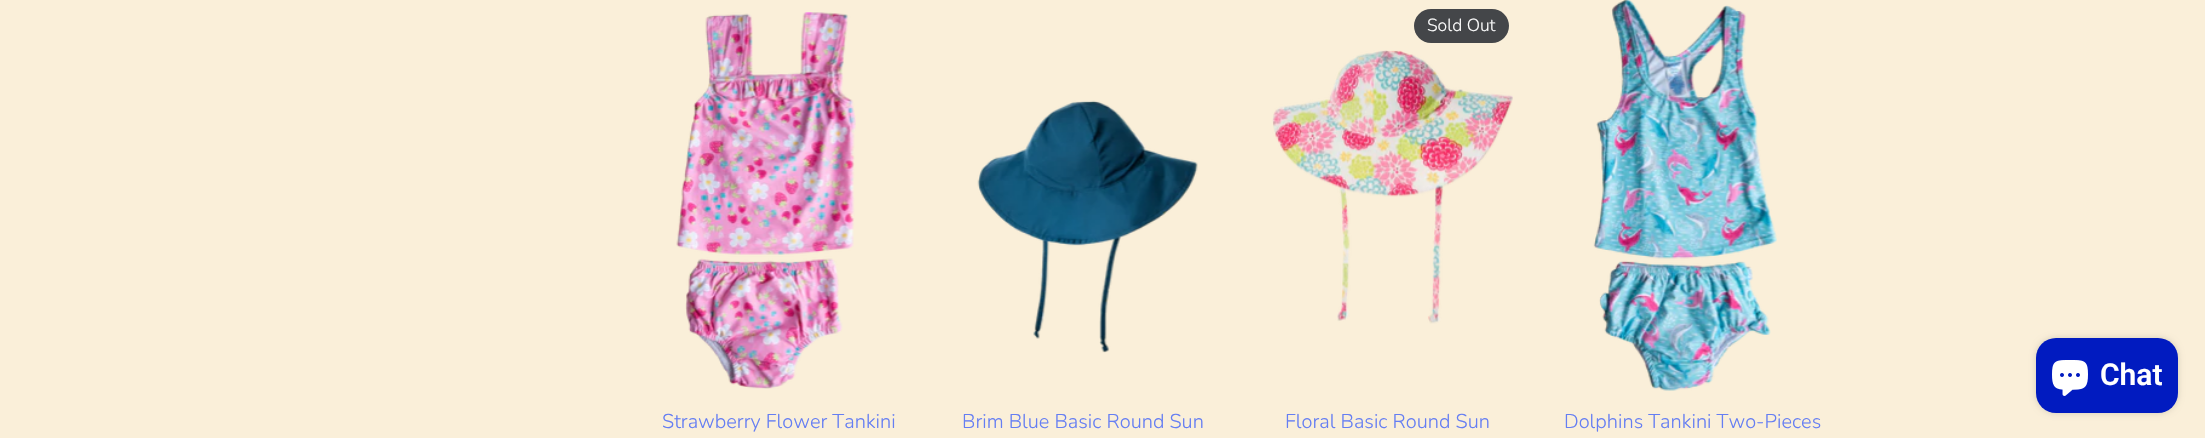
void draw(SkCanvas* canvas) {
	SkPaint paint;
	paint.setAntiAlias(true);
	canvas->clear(0xfffaefd9);
	canvas->drawImageRect(SkImages::DeferredFromEncodedData(SkData::MakeFromFileName("img1.png")), SkRect::MakeXYWH(676, 12, 180, 377), SkSamplingOptions());
	SkFont f1(fontMgr->matchFamilyStyle("Nunito", SkFontStyle(300, SkFontStyle::kNormal_Width, SkFontStyle::kUpright_Slant)), 20);
	f1.setSubpixel(true);
	paint.setColor(0xff657ef3);
	canvas->drawString("Strawberry Flower Tankini", 662, 428, f1, paint);
	canvas->drawImageRect(SkImages::DeferredFromEncodedData(SkData::MakeFromFileName("img2.png")), SkRect::MakeXYWH(977, 100, 221, 253), SkSamplingOptions());
	canvas->drawString("Brim Blue Basic Round Sun", 962, 428, f1, paint);
	paint.setColor(0xff444649);
	canvas->drawRoundRect(SkRect::MakeXYWH(1414, 9, 95, 34), 17, 17, paint);
	SkFont f2(fontMgr->matchFamilyStyle("Nunito", SkFontStyle(300, SkFontStyle::kNormal_Width, SkFontStyle::kUpright_Slant)), 17.5);
	f2.setSubpixel(true);
	paint.setColor(0xffffffff);
	canvas->drawString("Sold Out", 1427, 31, f2, paint);
	canvas->drawImageRect(SkImages::DeferredFromEncodedData(SkData::MakeFromFileName("img3.png")), SkRect::MakeXYWH(1272, 50, 241, 274), SkSamplingOptions());
	paint.setColor(0xff657ef3);
	canvas->drawString("Floral Basic Round Sun", 1285, 428, f1, paint);
	canvas->drawImageRect(SkImages::DeferredFromEncodedData(SkData::MakeFromFileName("img4.png")), SkRect::MakeXYWH(1593, 0, 184, 391), SkSamplingOptions());
	canvas->drawString("Dolphins Tankini Two-Pieces", 1564, 428, f1, paint);
	paint.setColor(0x26000000);
	paint.setMaskFilter(SkMaskFilter::MakeBlur(kNormal_SkBlurStyle, 3));
	canvas->drawRoundRect(SkRect::MakeXYWH(2036, 338, 142, 75), 20, 20, paint);
	paint.setMaskFilter(nullptr);
	paint.setColor(0xff011bc0);
	canvas->drawRoundRect(SkRect::MakeXYWH(2036, 338, 142, 75), 20, 20, paint);
	canvas->drawImageRect(SkImages::DeferredFromEncodedData(SkData::MakeFromFileName("img5.png")), SkRect::MakeXYWH(2052, 360, 36, 36), SkSamplingOptions());
	SkFont f3(fontMgr->matchFamilyStyle("Roboto", SkFontStyle(600, SkFontStyle::kNormal_Width, SkFontStyle::kUpright_Slant)), 30);
	f3.setSubpixel(true);
	paint.setColor(0xffffffff);
	canvas->drawString("Chat", 2100, 385, f3, paint);
}
